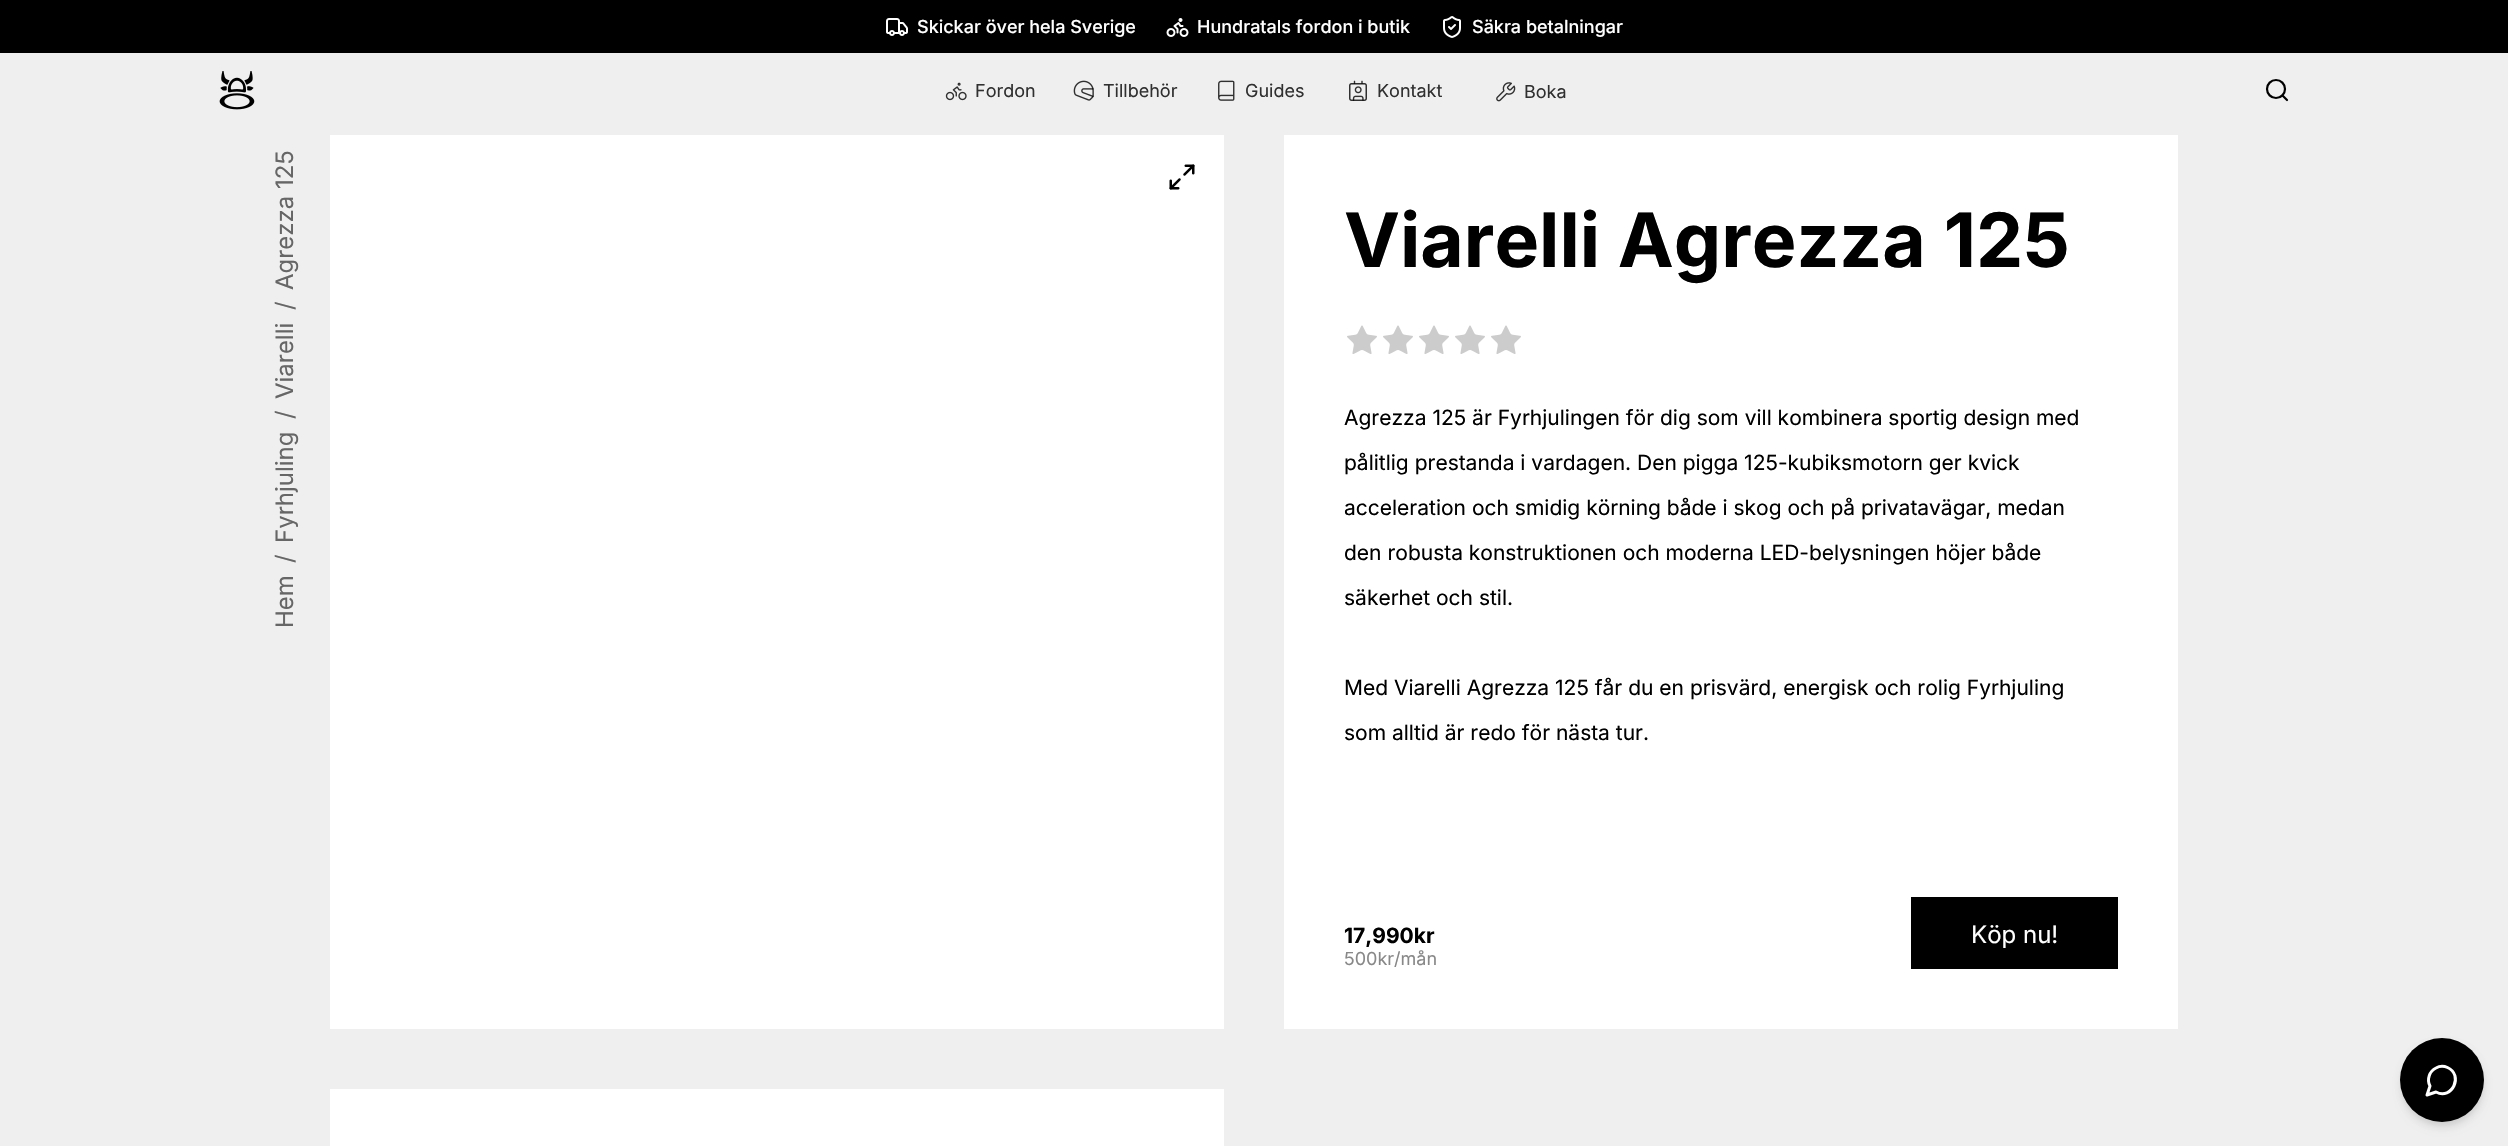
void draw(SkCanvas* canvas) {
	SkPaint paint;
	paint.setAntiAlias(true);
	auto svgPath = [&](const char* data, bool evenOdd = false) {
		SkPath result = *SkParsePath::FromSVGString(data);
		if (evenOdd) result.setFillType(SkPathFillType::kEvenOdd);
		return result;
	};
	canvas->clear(0xffefefef);
	paint.setColor(0xff000000);
	canvas->drawRect(SkRect::MakeXYWH(0, 0, 2508, 53), paint);
	canvas->drawImageRect(SkImages::DeferredFromEncodedData(SkData::MakeFromFileName("img1.png")), SkRect::MakeXYWH(886, 18, 22, 18), SkSamplingOptions());
	SkFont f1(fontMgr->matchFamilyStyle("Inter", SkFontStyle(500, SkFontStyle::kNormal_Width, SkFontStyle::kUpright_Slant)), 18);
	f1.setSubpixel(true);
	paint.setColor(0xffffffff);
	canvas->drawString("Skickar över hela Sverige", 917, 33, f1, paint);
	canvas->drawImageRect(SkImages::DeferredFromEncodedData(SkData::MakeFromFileName("img2.png")), SkRect::MakeXYWH(1166, 18, 23, 19), SkSamplingOptions());
	canvas->drawString("Hundratals fordon i butik", 1197, 33, f1, paint);
	canvas->drawImageRect(SkImages::DeferredFromEncodedData(SkData::MakeFromFileName("img3.png")), SkRect::MakeXYWH(1443, 16, 18, 22), SkSamplingOptions());
	canvas->drawString("Säkra betalningar", 1472, 33, f1, paint);
	canvas->drawImageRect(SkImages::DeferredFromEncodedData(SkData::MakeFromFileName("img4.png")), SkRect::MakeXYWH(219, 71, 36, 39), SkSamplingOptions());
	canvas->drawImageRect(SkImages::DeferredFromEncodedData(SkData::MakeFromFileName("img5.png")), SkRect::MakeXYWH(945, 82, 22, 19), SkSamplingOptions());
	SkFont f2(fontMgr->matchFamilyStyle("Inter", SkFontStyle::Normal()), 18);
	f2.setSubpixel(true);
	paint.setColor(0xff303030);
	canvas->drawString("Fordon", 975, 97, f2, paint);
	canvas->drawImageRect(SkImages::DeferredFromEncodedData(SkData::MakeFromFileName("img6.png")), SkRect::MakeXYWH(1073, 80, 21, 21), SkSamplingOptions());
	canvas->drawString("Tillbehör", 1103, 97, f2, paint);
	canvas->drawImageRect(SkImages::DeferredFromEncodedData(SkData::MakeFromFileName("img7.png")), SkRect::MakeXYWH(1218, 80, 17, 21), SkSamplingOptions());
	canvas->drawString("Guides", 1245, 97, f2, paint);
	canvas->drawImageRect(SkImages::DeferredFromEncodedData(SkData::MakeFromFileName("img8.png")), SkRect::MakeXYWH(1349, 80, 18, 21), SkSamplingOptions());
	canvas->drawString("Kontakt", 1377, 97, f2, paint);
	canvas->drawImageRect(SkImages::DeferredFromEncodedData(SkData::MakeFromFileName("img9.png")), SkRect::MakeXYWH(1496, 82, 20, 20), SkSamplingOptions());
	canvas->drawString("Boka", 1524, 98, f2, paint);
	paint.setStroke(true);
	paint.setStrokeWidth(2.2);
	paint.setColor(0xff000000);
	canvas->drawCircle(2276, 89, 9, paint);
	paint.setStrokeCap(SkPaint::kRound_Cap);
	paint.setStrokeJoin(SkPaint::kRound_Join);
	canvas->drawPath(svgPath("M2287 100L2282.5 95.5"), paint);
	SkFont f3(fontMgr->matchFamilyStyle("Inter", SkFontStyle::Normal()), 24);
	f3.setSubpixel(true);
	paint.setStroke(false);
	paint.setColor(0xff666666);
	canvas->save();
	canvas->rotate(-90, 293, 290);
	canvas->drawString("Agrezza 125", 293, 290, f3, paint);
	canvas->restore();
	canvas->save();
	canvas->rotate(-90, 293, 310);
	canvas->drawString("/", 293, 310, f3, paint);
	canvas->restore();
	canvas->save();
	canvas->rotate(-90, 293, 399);
	canvas->drawString("Viarelli", 293, 399, f3, paint);
	canvas->restore();
	canvas->save();
	canvas->rotate(-90, 293, 419);
	canvas->drawString("/", 293, 419, f3, paint);
	canvas->restore();
	canvas->save();
	canvas->rotate(-90, 293, 543);
	canvas->drawString("Fyrhjuling", 293, 543, f3, paint);
	canvas->restore();
	canvas->save();
	canvas->rotate(-90, 293, 563);
	canvas->drawString("/", 293, 563, f3, paint);
	canvas->restore();
	canvas->save();
	canvas->rotate(-90, 293, 628);
	canvas->drawString("Hem", 293, 628, f3, paint);
	canvas->restore();
	paint.setColor(0xffffffff);
	canvas->drawRect(SkRect::MakeXYWH(330, 135, 894, 894), paint);
	canvas->drawImageRect(SkImages::DeferredFromEncodedData(SkData::MakeFromFileName("img10.png")), SkRect::MakeXYWH(1169, 164, 26, 26), SkSamplingOptions());
	canvas->drawRect(SkRect::MakeXYWH(1284, 135, 894, 894), paint);
	SkFont f4(fontMgr->matchFamilyStyle("Inter", SkFontStyle::Bold()), 75);
	f4.setSubpixel(true);
	paint.setColor(0xff000000);
	canvas->drawString("Viarelli Agrezza 125", 1344, 267, f4, paint);
	canvas->drawImageRect(SkImages::DeferredFromEncodedData(SkData::MakeFromFileName("img11.png")), SkRect::MakeXYWH(1347, 325, 30, 29), SkSamplingOptions());
	canvas->drawImageRect(SkImages::DeferredFromEncodedData(SkData::MakeFromFileName("img11.png")), SkRect::MakeXYWH(1383, 325, 30, 29), SkSamplingOptions());
	canvas->drawImageRect(SkImages::DeferredFromEncodedData(SkData::MakeFromFileName("img11.png")), SkRect::MakeXYWH(1419, 325, 30, 29), SkSamplingOptions());
	canvas->drawImageRect(SkImages::DeferredFromEncodedData(SkData::MakeFromFileName("img11.png")), SkRect::MakeXYWH(1455, 325, 30, 29), SkSamplingOptions());
	canvas->drawImageRect(SkImages::DeferredFromEncodedData(SkData::MakeFromFileName("img11.png")), SkRect::MakeXYWH(1491, 325, 30, 29), SkSamplingOptions());
	SkFont f5(fontMgr->matchFamilyStyle("Inter", SkFontStyle::Normal()), 21);
	f5.setSubpixel(true);
	canvas->drawString("Agrezza 125 är Fyrhjulingen för dig som vill kombinera sportig design med", 1344, 425, f5, paint);
	canvas->drawString("pålitlig prestanda i vardagen. Den pigga 125-kubiksmotorn ger kvick", 1344, 470, f5, paint);
	canvas->drawString("acceleration och smidig körning både i skog och på privatavägar, medan", 1344, 515, f5, paint);
	canvas->drawString("den robusta konstruktionen och moderna LED-belysningen höjer både", 1344, 560, f5, paint);
	canvas->drawString("säkerhet och stil.", 1344, 605, f5, paint);
	canvas->drawString("Med Viarelli Agrezza 125 får du en prisvärd, energisk och rolig Fyrhjuling", 1344, 695, f5, paint);
	canvas->drawString("som alltid är redo för nästa tur.", 1344, 740, f5, paint);
	SkFont f6(fontMgr->matchFamilyStyle("Inter", SkFontStyle::Bold()), 21);
	f6.setSubpixel(true);
	canvas->drawString("17,990kr", 1344, 943, f6, paint);
	paint.setColor(0xff888888);
	canvas->drawString("500kr/mån", 1344, 965, f2, paint);
	paint.setColor(0xff000000);
	canvas->drawRect(SkRect::MakeXYWH(1911, 897, 207, 72), paint);
	paint.setColor(0xffffffff);
	canvas->drawString("Köp nu!", 1971, 943, f3, paint);
	canvas->drawRect(SkRect::MakeXYWH(330, 1089, 894, 57), paint);
	paint.setColor(0x0f000000);
	paint.setMaskFilter(SkMaskFilter::MakeBlur(kNormal_SkBlurStyle, 3));
	canvas->drawRoundRect(SkRect::MakeXYWH(2402, 1043, 81, 81), 40.5, 40.5, paint);
	paint.setMaskFilter(nullptr);
	paint.setColor(0x1a000000);
	paint.setMaskFilter(SkMaskFilter::MakeBlur(kNormal_SkBlurStyle, 4.5));
	canvas->drawRoundRect(SkRect::MakeXYWH(2402, 1046, 81, 81), 40.5, 40.5, paint);
	paint.setMaskFilter(nullptr);
	paint.setColor(0xff000000);
	canvas->drawCircle(2442, 1080, 42, paint);
	paint.setStroke(true);
	paint.setStrokeWidth(3);
	paint.setColor(0xffffffff);
	canvas->drawPath(svgPath("M2436 1092C2452 1100.5 2464 1075 2447.5 1067.5C2444 1066 2439.5 1066 2436 1068C2429.5 1071 2426.5 1079.5 2430 1086L2427 1095Z"), paint);
}
